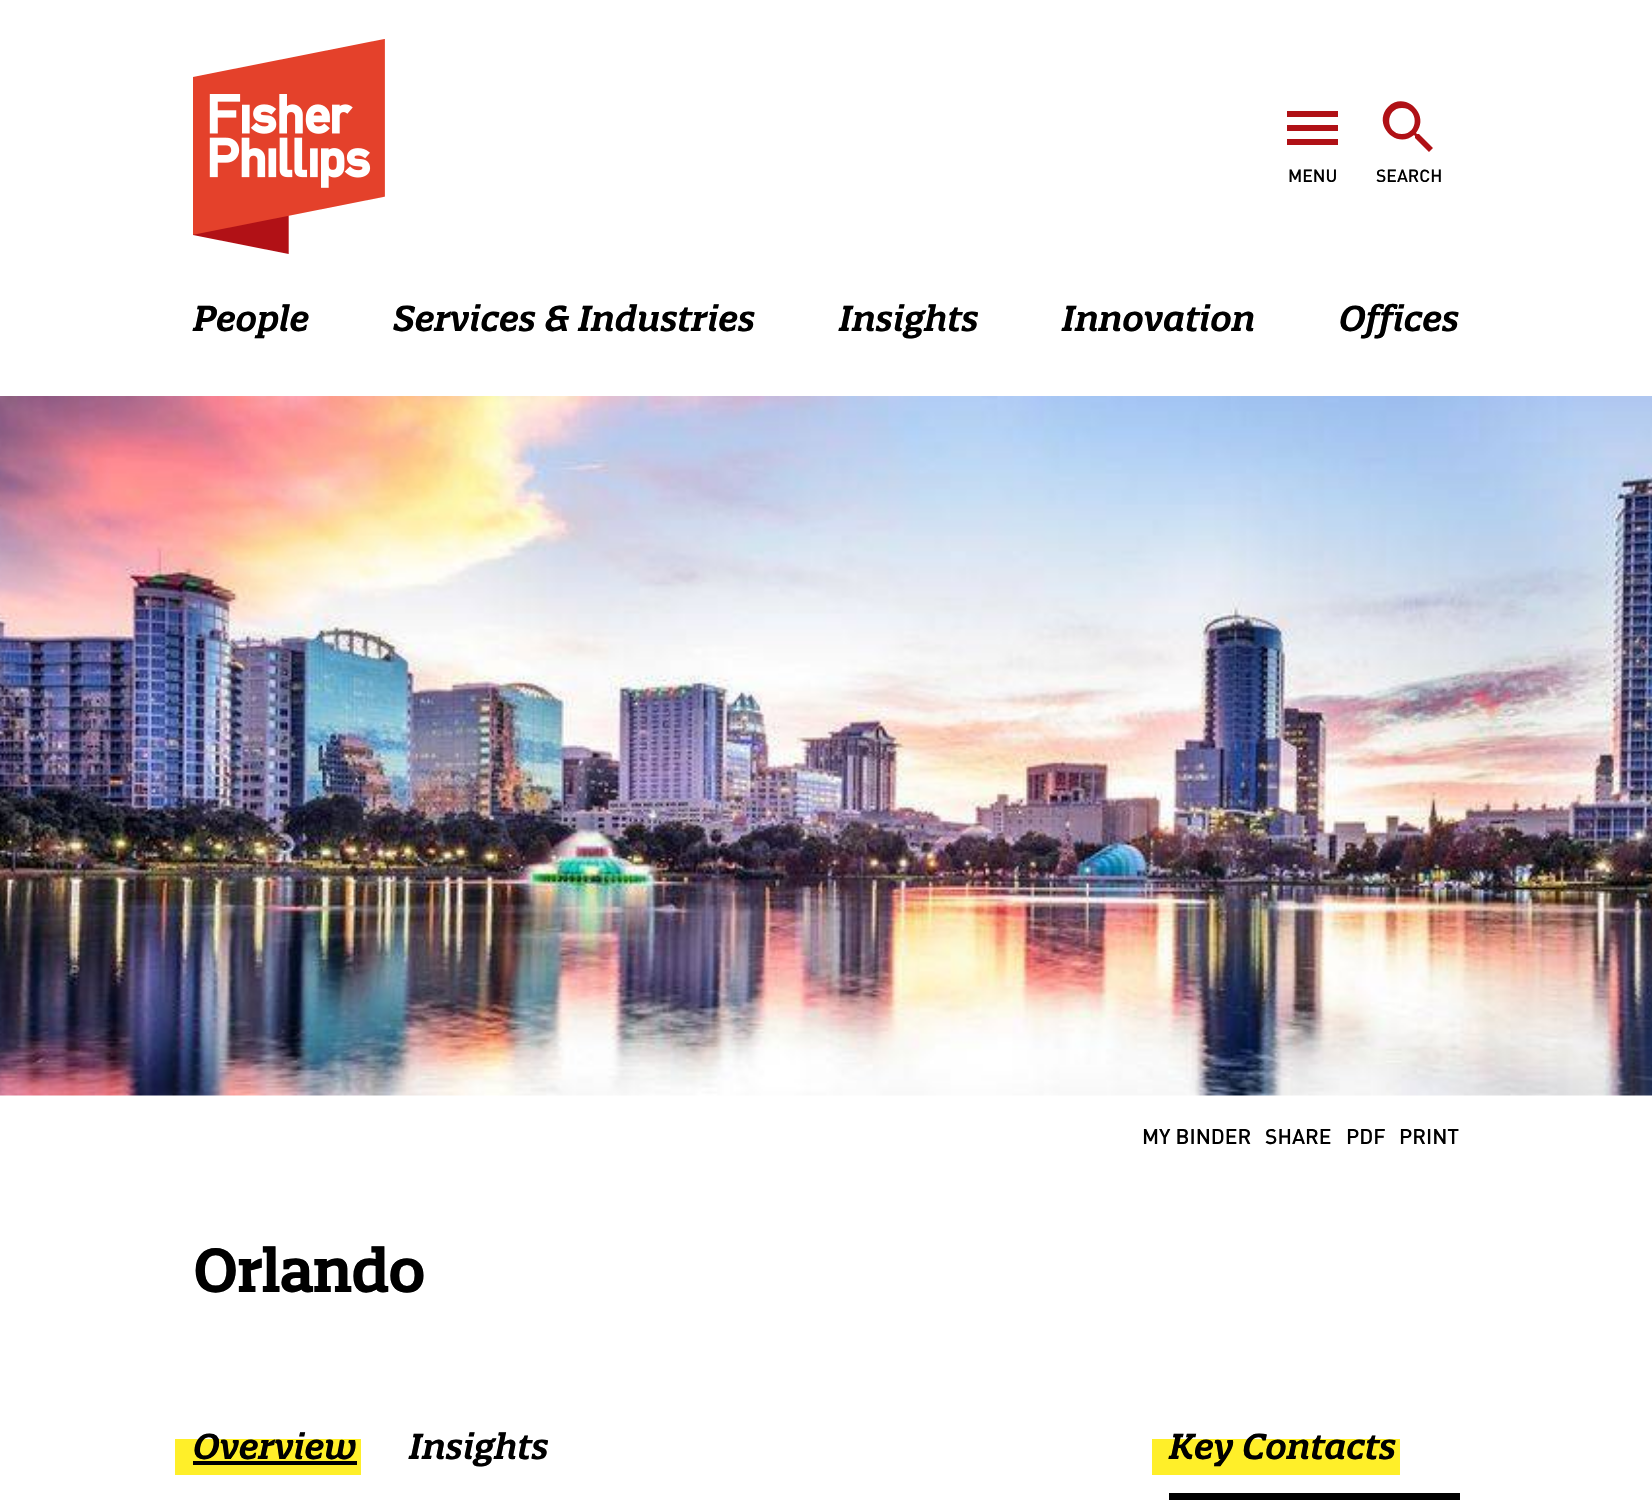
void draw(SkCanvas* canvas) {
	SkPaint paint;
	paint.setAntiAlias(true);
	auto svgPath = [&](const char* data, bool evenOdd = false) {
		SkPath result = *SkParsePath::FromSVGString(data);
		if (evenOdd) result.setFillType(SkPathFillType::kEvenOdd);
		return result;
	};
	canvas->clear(0xffffffff);
	canvas->drawImageRect(SkImages::DeferredFromEncodedData(SkData::MakeFromFileName("img1.png")), SkRect::MakeXYWH(193, 39, 192, 215), SkSamplingOptions());
	paint.setColor(0xffb01116);
	canvas->drawPath(svgPath("M1287 111H1338V117H1287ZM1287 131V125H1338V131ZM1287 145V139H1338V145Z"), paint);
	SkFont f1(fontMgr->matchFamilyStyle("DIN", SkFontStyle(500, SkFontStyle::kNormal_Width, SkFontStyle::kUpright_Slant)), 17.5);
	f1.setSubpixel(true);
	paint.setColor(0xff000000);
	canvas->drawString("MENU", 1288, 182, f1, paint);
	paint.setColor(0xffb01116);
	canvas->drawPath(svgPath("M1402 134C1419 134 1419 108 1402 108C1385 108 1385 134 1402 134ZM1419 134L1433 148L1429 152L1415 138V136L1414 135C1396 150 1372 124 1388 107C1405 90 1431 115 1416 133L1417 134Z"), paint);
	paint.setColor(0xff000000);
	canvas->drawString("SEARCH", 1376, 182, f1, paint);
	SkFont f2(fontMgr->matchFamilyStyle("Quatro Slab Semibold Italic", SkFontStyle(600, SkFontStyle::kNormal_Width, SkFontStyle::kUpright_Slant)), 35);
	f2.setSubpixel(true);
	canvas->drawString("People", 193, 331, f2, paint);
	canvas->drawString("Services & Industries", 393, 331, f2, paint);
	canvas->drawString("Insights", 839, 331, f2, paint);
	canvas->drawString("Innovation", 1062, 331, f2, paint);
	canvas->drawString("Offices", 1339, 331, f2, paint);
	canvas->drawImageRect(SkImages::DeferredFromEncodedData(SkData::MakeFromFileName("img2.png")), SkRect::MakeXYWH(0, 396, 1652, 700), SkSamplingOptions());
	SkFont f3(fontMgr->matchFamilyStyle("DIN", SkFontStyle(500, SkFontStyle::kNormal_Width, SkFontStyle::kUpright_Slant)), 21);
	f3.setSubpixel(true);
	canvas->drawString("MY BINDER", 1142, 1144, f3, paint);
	canvas->drawString("SHARE", 1265, 1144, f3, paint);
	canvas->drawString("PDF", 1346, 1144, f3, paint);
	canvas->drawString("PRINT", 1399, 1144, f3, paint);
	SkFont f4(fontMgr->matchFamilyStyle("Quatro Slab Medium", SkFontStyle::Bold()), 57.75);
	f4.setSubpixel(true);
	canvas->drawString("Orlando", 193, 1292, f4, paint);
	paint.setColor(0xffffef29);
	canvas->drawRect(SkRect::MakeXYWH(175, 1439, 186, 36), paint);
	paint.setColor(0xff000000);
	canvas->drawString("Overview", 193, 1459, f2, paint);
	canvas->drawRect(SkRect::MakeXYWH(193, 1461, 164, 4), paint);
	canvas->drawString("Insights", 409, 1459, f2, paint);
	paint.setColor(0xffffef29);
	canvas->drawRect(SkRect::MakeXYWH(1152, 1439, 248, 36), paint);
	paint.setColor(0xff000000);
	canvas->drawString("Key Contacts", 1169, 1459, f2, paint);
	canvas->drawRect(SkRect::MakeXYWH(1169, 1493, 291, 7), paint);
}
